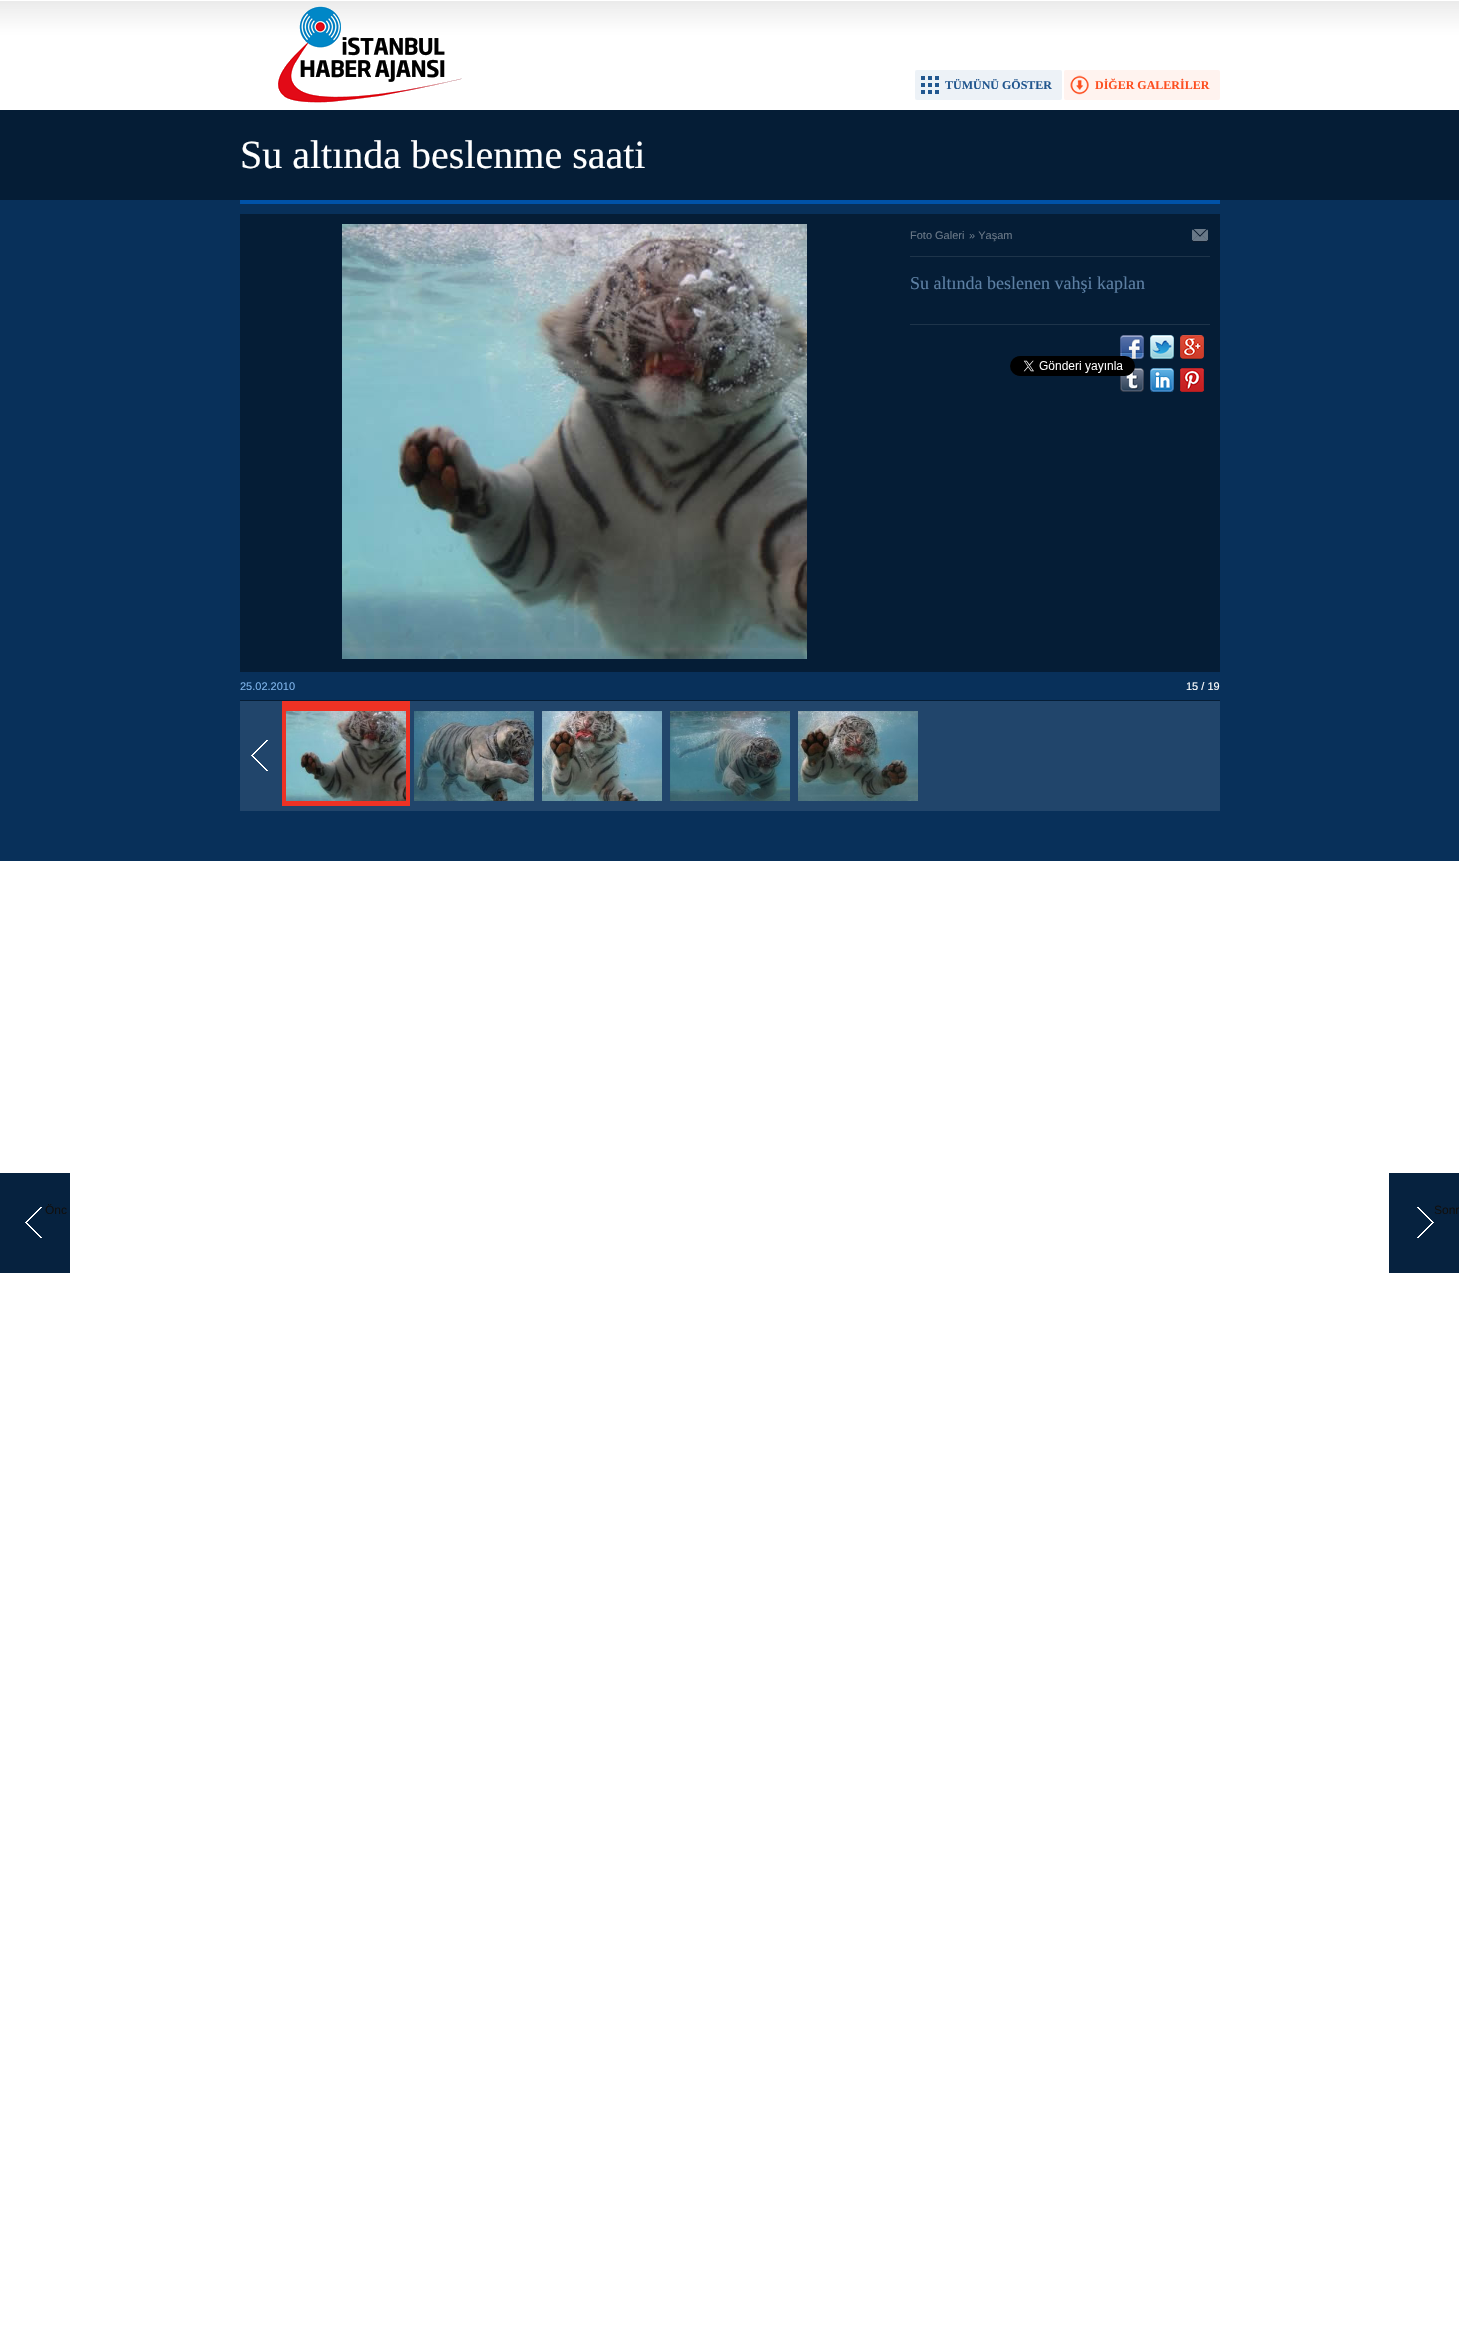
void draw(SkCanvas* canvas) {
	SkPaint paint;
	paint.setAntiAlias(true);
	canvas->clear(0xffffffff);
	paint.setColor(0xff08305a);
	canvas->drawRect(SkRect::MakeXYWH(0, 200, 1459, 661), paint);
	canvas->drawImageRect(SkImages::DeferredFromEncodedData(SkData::MakeFromFileName("img1.png")), SkRect::MakeXYWH(0, 0, 1459, 200), SkSamplingOptions());
	canvas->drawImageRect(SkImages::DeferredFromEncodedData(SkData::MakeFromFileName("img2.png")), SkRect::MakeXYWH(278, 6, 184, 97), SkSamplingOptions());
	paint.setColor(0xffedf2f7);
	canvas->drawRoundRect(SkRect::MakeXYWH(915, 70, 147, 30), 2, 2, paint);
	canvas->drawImageRect(SkImages::DeferredFromEncodedData(SkData::MakeFromFileName("img3.png")), SkRect::MakeXYWH(921, 76, 18, 18), SkSamplingOptions());
	SkFont f1(fontMgr->matchFamilyStyle("Liberation Serif", SkFontStyle::Bold()), 12);
	f1.setSubpixel(true);
	paint.setColor(0xff21568e);
	canvas->drawString("TÜMÜNÜ GÖSTER", 945, 89, f1, paint);
	paint.setColor(0xfffff3ef);
	canvas->drawRoundRect(SkRect::MakeXYWH(1064, 70, 156, 30), 2, 2, paint);
	canvas->drawImageRect(SkImages::DeferredFromEncodedData(SkData::MakeFromFileName("img4.png")), SkRect::MakeXYWH(1070, 75, 19, 20), SkSamplingOptions());
	paint.setColor(0xfffd4f20);
	canvas->drawString("DİĞER GALERİLER", 1095, 89, f1, paint);
	paint.setColor(0xff0052a8);
	canvas->drawRect(SkRect::MakeXYWH(240, 200, 980, 4), paint);
	SkFont f2(fontMgr->matchFamilyStyle("Liberation Serif", SkFontStyle::Normal()), 40);
	f2.setSubpixel(true);
	paint.setColor(0xffffffff);
	canvas->drawString("Su altında beslenme saati", 240, 168, f2, paint);
	paint.setColor(0xff051d36);
	canvas->drawRect(SkRect::MakeXYWH(240, 214, 980, 458), paint);
	canvas->drawImageRect(SkImages::DeferredFromEncodedData(SkData::MakeFromFileName("img5.png")), SkRect::MakeXYWH(342, 224, 465, 435), SkSamplingOptions());
	SkFont f3(fontMgr->matchFamilyStyle("Liberation Sans", SkFontStyle::Normal()), 11);
	f3.setSubpixel(true);
	paint.setColor(0xff697786);
	canvas->drawString("Foto Galeri", 910, 239, f3, paint);
	canvas->drawString("» Yaşam", 969, 239, f3, paint);
	canvas->drawImageRect(SkImages::DeferredFromEncodedData(SkData::MakeFromFileName("img6.png")), SkRect::MakeXYWH(1192, 229, 16, 13), SkSamplingOptions());
	paint.setColor(0xff1e344a);
	canvas->drawRect(SkRect::MakeXYWH(910, 256, 300, 1), paint);
	canvas->drawRect(SkRect::MakeXYWH(910, 324, 300, 1), paint);
	SkFont f4(fontMgr->matchFamilyStyle("Liberation Serif", SkFontStyle::Normal()), 18);
	f4.setSubpixel(true);
	paint.setColor(0xff5d80a4);
	canvas->drawString("Su altında beslenen vahşi kaplan", 910, 289, f4, paint);
	canvas->drawImageRect(SkImages::DeferredFromEncodedData(SkData::MakeFromFileName("img8.png")), SkRect::MakeXYWH(1120, 335, 24, 24), SkSamplingOptions());
	canvas->drawImageRect(SkImages::DeferredFromEncodedData(SkData::MakeFromFileName("img11.png")), SkRect::MakeXYWH(1120, 368, 24, 24), SkSamplingOptions());
	canvas->drawImageRect(SkImages::DeferredFromEncodedData(SkData::MakeFromFileName("img7.png")), SkRect::MakeXYWH(1010, 356, 125, 20), SkSamplingOptions());
	canvas->drawImageRect(SkImages::DeferredFromEncodedData(SkData::MakeFromFileName("img9.png")), SkRect::MakeXYWH(1150, 335, 24, 24), SkSamplingOptions());
	canvas->drawImageRect(SkImages::DeferredFromEncodedData(SkData::MakeFromFileName("img10.png")), SkRect::MakeXYWH(1180, 335, 24, 24), SkSamplingOptions());
	canvas->drawImageRect(SkImages::DeferredFromEncodedData(SkData::MakeFromFileName("img12.png")), SkRect::MakeXYWH(1150, 368, 24, 24), SkSamplingOptions());
	canvas->drawImageRect(SkImages::DeferredFromEncodedData(SkData::MakeFromFileName("img13.png")), SkRect::MakeXYWH(1180, 368, 24, 24), SkSamplingOptions());
	paint.setColor(0xff7db2e9);
	canvas->drawString("25.02.2010", 240, 690, f3, paint);
	paint.setColor(0xffffffff);
	canvas->drawString("15 / 19", 1186, 690, f3, paint);
	paint.setColor(0xff21456b);
	canvas->drawRect(SkRect::MakeXYWH(240, 701, 980, 110), paint);
	paint.setColor(0xff051d36);
	canvas->drawRect(SkRect::MakeXYWH(240, 700, 980, 1), paint);
	canvas->drawImageRect(SkImages::DeferredFromEncodedData(SkData::MakeFromFileName("img14.png")), SkRect::MakeXYWH(251, 740, 17, 31), SkSamplingOptions());
	paint.setColor(0xffee3224);
	canvas->drawRect(SkRect::MakeXYWH(282, 701, 128, 105), paint);
	canvas->drawImageRect(SkImages::DeferredFromEncodedData(SkData::MakeFromFileName("img15.png")), SkRect::MakeXYWH(286, 711, 120, 90), SkSamplingOptions());
	canvas->drawImageRect(SkImages::DeferredFromEncodedData(SkData::MakeFromFileName("img16.png")), SkRect::MakeXYWH(414, 711, 120, 90), SkSamplingOptions());
	canvas->drawImageRect(SkImages::DeferredFromEncodedData(SkData::MakeFromFileName("img17.png")), SkRect::MakeXYWH(542, 711, 120, 90), SkSamplingOptions());
	canvas->drawImageRect(SkImages::DeferredFromEncodedData(SkData::MakeFromFileName("img18.png")), SkRect::MakeXYWH(670, 711, 120, 90), SkSamplingOptions());
	canvas->drawImageRect(SkImages::DeferredFromEncodedData(SkData::MakeFromFileName("img19.png")), SkRect::MakeXYWH(798, 711, 120, 90), SkSamplingOptions());
	paint.setColor(0xff06223f);
	canvas->drawRect(SkRect::MakeXYWH(0, 1173, 70, 100), paint);
	canvas->drawImageRect(SkImages::DeferredFromEncodedData(SkData::MakeFromFileName("img20.png")), SkRect::MakeXYWH(25, 1207, 17, 31), SkSamplingOptions());
	SkFont f5(fontMgr->matchFamilyStyle("Liberation Sans", SkFontStyle::Normal()), 12);
	f5.setSubpixel(true);
	paint.setColor(0xff0f0f0f);
	canvas->drawString("Önc", 45, 1214, f5, paint);
	paint.setColor(0xff06223f);
	canvas->drawRect(SkRect::MakeXYWH(1389, 1173, 70, 100), paint);
	canvas->drawImageRect(SkImages::DeferredFromEncodedData(SkData::MakeFromFileName("img21.png")), SkRect::MakeXYWH(1417, 1207, 17, 31), SkSamplingOptions());
	paint.setColor(0xff0f0f0f);
	canvas->drawString("Sonr", 1434, 1214, f5, paint);
}
